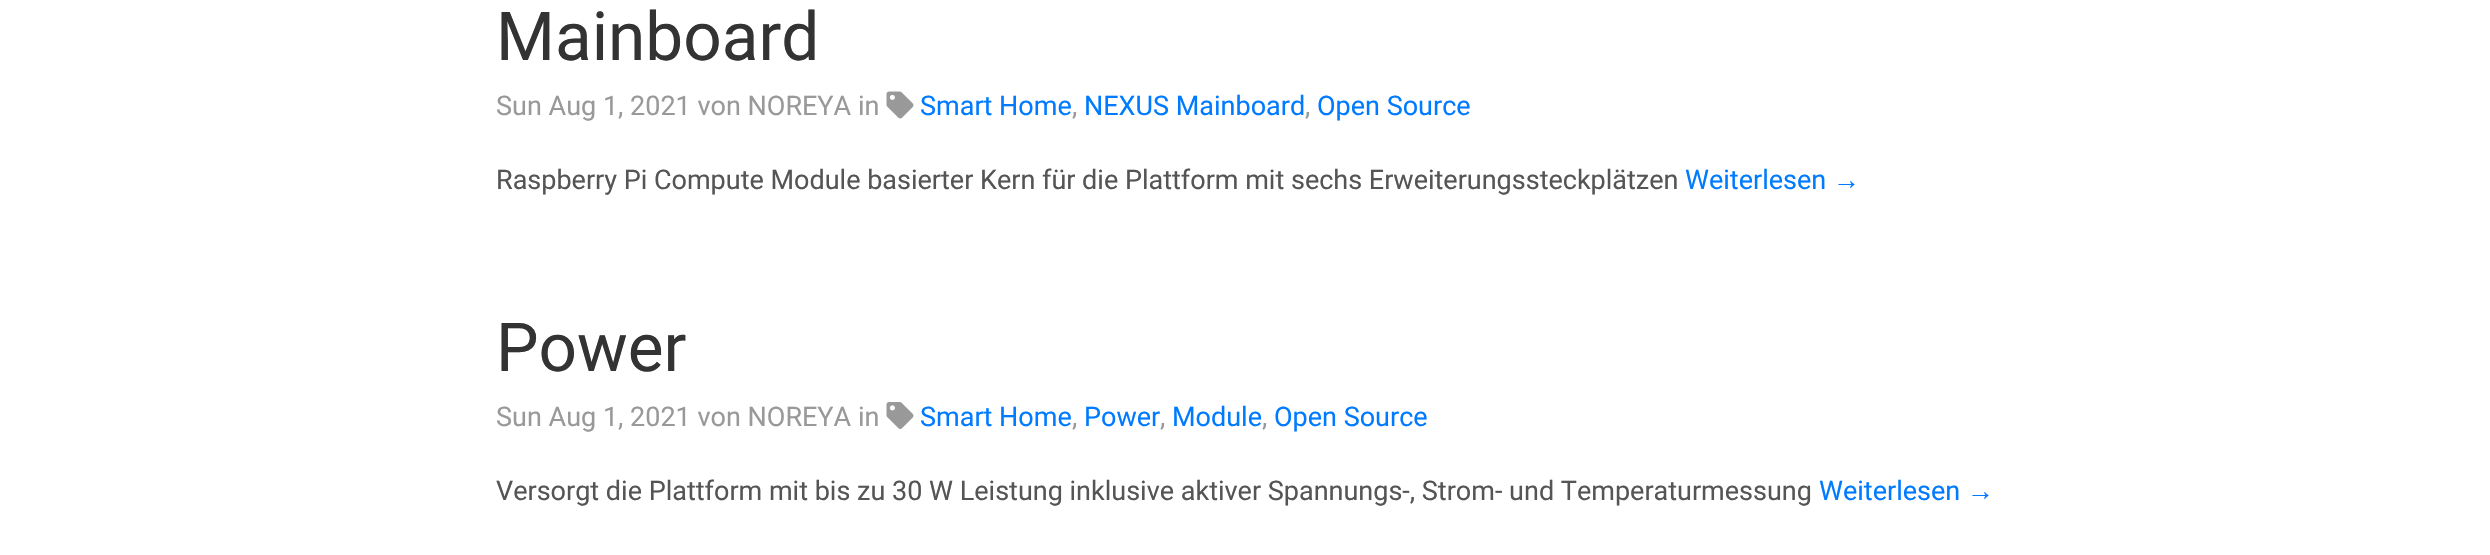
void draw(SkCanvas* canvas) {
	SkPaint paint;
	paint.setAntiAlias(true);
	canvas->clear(0xffffffff);
	SkFont f1(fontMgr->matchFamilyStyle("Roboto", SkFontStyle::Normal()), 67.5);
	f1.setSubpixel(true);
	paint.setColor(0xff333333);
	canvas->drawString("Mainboard", 496, 60, f1, paint);
	SkFont f2(fontMgr->matchFamilyStyle("Roboto", SkFontStyle::Normal()), 27);
	f2.setSubpixel(true);
	paint.setColor(0xff999999);
	canvas->drawString("Sun Aug 1, 2021 von NOREYA in", 496, 115, f2, paint);
	canvas->drawImageRect(SkImages::DeferredFromEncodedData(SkData::MakeFromFileName("img1.png")), SkRect::MakeXYWH(886, 91, 28, 28), SkSamplingOptions());
	paint.setColor(0xff007bff);
	canvas->drawString("Smart Home", 920, 115, f2, paint);
	paint.setColor(0xff999999);
	canvas->drawString(",", 1072, 115, f2, paint);
	paint.setColor(0xff007bff);
	canvas->drawString("NEXUS Mainboard", 1084, 115, f2, paint);
	paint.setColor(0xff999999);
	canvas->drawString(",", 1305, 115, f2, paint);
	paint.setColor(0xff007bff);
	canvas->drawString("Open Source", 1317, 115, f2, paint);
	paint.setColor(0xff555555);
	canvas->drawString("Raspberry Pi Compute Module basierter Kern für die Plattform mit sechs Erweiterungssteckplätzen", 496, 189, f2, paint);
	paint.setColor(0xff007bff);
	canvas->drawString("Weiterlesen", 1685, 189, f2, paint);
	SkFont f3(fontMgr->matchFamilyStyle("Liberation Sans", SkFontStyle::Normal()), 27);
	f3.setSubpixel(true);
	canvas->drawString("→", 1833, 189, f3, paint);
	paint.setColor(0xff333333);
	canvas->drawString("Power", 496, 371, f1, paint);
	paint.setColor(0xff999999);
	canvas->drawString("Sun Aug 1, 2021 von NOREYA in", 496, 426, f2, paint);
	canvas->drawImageRect(SkImages::DeferredFromEncodedData(SkData::MakeFromFileName("img2.png")), SkRect::MakeXYWH(886, 402, 28, 27), SkSamplingOptions());
	paint.setColor(0xff007bff);
	canvas->drawString("Smart Home", 920, 426, f2, paint);
	paint.setColor(0xff999999);
	canvas->drawString(",", 1072, 426, f2, paint);
	paint.setColor(0xff007bff);
	canvas->drawString("Power", 1084, 426, f2, paint);
	paint.setColor(0xff999999);
	canvas->drawString(",", 1160, 426, f2, paint);
	paint.setColor(0xff007bff);
	canvas->drawString("Module", 1172, 426, f2, paint);
	paint.setColor(0xff999999);
	canvas->drawString(",", 1262, 426, f2, paint);
	paint.setColor(0xff007bff);
	canvas->drawString("Open Source", 1274, 426, f2, paint);
	paint.setColor(0xff555555);
	canvas->drawString("Versorgt die Plattform mit bis zu 30 W Leistung inklusive aktiver Spannungs-, Strom- und Temperaturmessung", 496, 500, f2, paint);
	paint.setColor(0xff007bff);
	canvas->drawString("Weiterlesen", 1819, 500, f2, paint);
	canvas->drawString("→", 1967, 500, f3, paint);
}
